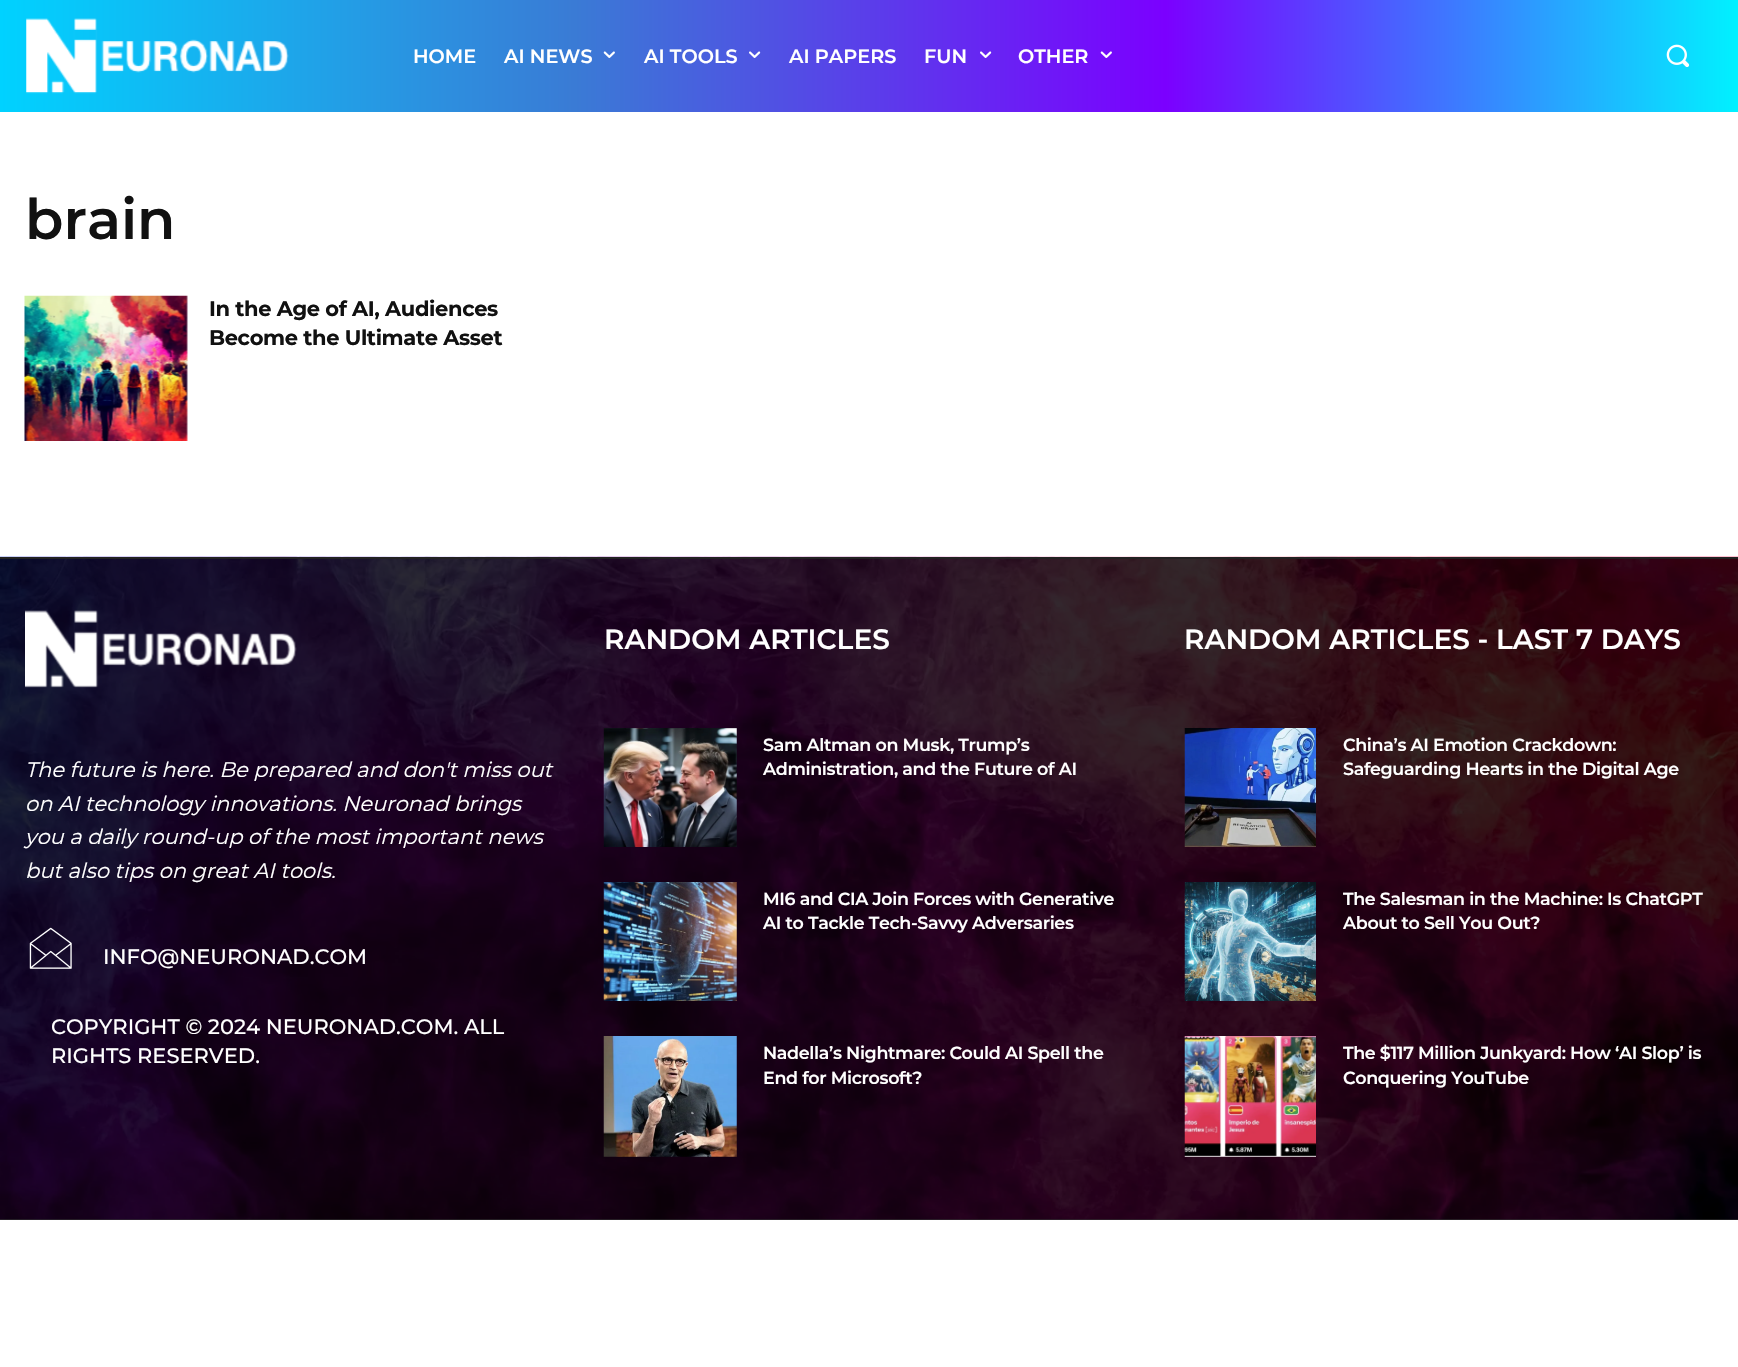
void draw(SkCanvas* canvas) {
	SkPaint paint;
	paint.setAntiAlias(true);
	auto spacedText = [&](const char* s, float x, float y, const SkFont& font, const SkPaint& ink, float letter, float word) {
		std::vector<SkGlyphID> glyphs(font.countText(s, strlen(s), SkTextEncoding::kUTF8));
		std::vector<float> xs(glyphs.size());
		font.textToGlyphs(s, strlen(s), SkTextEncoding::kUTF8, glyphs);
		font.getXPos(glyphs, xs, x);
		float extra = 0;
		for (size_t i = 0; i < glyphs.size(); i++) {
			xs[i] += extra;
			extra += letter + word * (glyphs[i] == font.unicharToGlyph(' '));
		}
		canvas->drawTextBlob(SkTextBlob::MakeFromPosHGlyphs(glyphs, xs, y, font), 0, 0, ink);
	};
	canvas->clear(0xffffffff);
	paint.setColor(0xff333333);
	canvas->drawRect(SkRect::MakeXYWH(0, 1219, 1738, 1), paint);
	{
		const SkColor colors[] = {0xff00d2ff, 0xff3a7bd5, 0xff7b00ff, 0xff00f2ff};
		const float stops[] = {0, 0.33, 0.67, 1};
		const SkPoint ends[] = {{0, 56}, {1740, 56}};
		paint.setShader(SkGradientShader::MakeLinear(ends, colors, stops, 4, SkTileMode::kClamp));
		paint.setAlpha(255);
	}
	canvas->drawRect(SkRect::MakeXYWH(0, 0, 1738, 112), paint);
	canvas->drawImageRect(SkImages::DeferredFromEncodedData(SkData::MakeFromFileName("img1.png")), SkRect::MakeXYWH(26, 18, 263, 76), SkSamplingOptions());
	SkFont f1(fontMgr->matchFamilyStyle("Montserrat", SkFontStyle(600, SkFontStyle::kNormal_Width, SkFontStyle::kUpright_Slant)), 19.25);
	f1.setSubpixel(true);
	paint.setShader(nullptr);
	paint.setColor(0xffffffff);
	canvas->drawString("HOME", 413, 63, f1, paint);
	canvas->drawString("AI NEWS", 504, 63, f1, paint);
	canvas->drawImageRect(SkImages::DeferredFromEncodedData(SkData::MakeFromFileName("img2.png")), SkRect::MakeXYWH(603, 51, 12, 7), SkSamplingOptions());
	canvas->drawString("AI TOOLS", 644, 63, f1, paint);
	canvas->drawImageRect(SkImages::DeferredFromEncodedData(SkData::MakeFromFileName("img3.png")), SkRect::MakeXYWH(749, 51, 12, 7), SkSamplingOptions());
	canvas->drawString("AI PAPERS", 789, 63, f1, paint);
	canvas->drawString("FUN", 924, 63, f1, paint);
	canvas->drawImageRect(SkImages::DeferredFromEncodedData(SkData::MakeFromFileName("img4.png")), SkRect::MakeXYWH(980, 51, 12, 7), SkSamplingOptions());
	canvas->drawString("OTHER", 1018, 63, f1, paint);
	canvas->drawImageRect(SkImages::DeferredFromEncodedData(SkData::MakeFromFileName("img5.png")), SkRect::MakeXYWH(1100, 51, 12, 7), SkSamplingOptions());
	canvas->drawImageRect(SkImages::DeferredFromEncodedData(SkData::MakeFromFileName("img6.png")), SkRect::MakeXYWH(1666, 44, 24, 24), SkSamplingOptions());
	SkFont f2(fontMgr->matchFamilyStyle("Montserrat", SkFontStyle(600, SkFontStyle::kNormal_Width, SkFontStyle::kUpright_Slant)), 56);
	f2.setSubpixel(true);
	paint.setColor(0xff111111);
	canvas->drawString("brain", 25, 239, f2, paint);
	canvas->drawImageRect(SkImages::DeferredFromEncodedData(SkData::MakeFromFileName("img7.png")), SkRect::MakeXYWH(24, 295, 164, 146), SkSamplingOptions());
	SkFont f3(fontMgr->matchFamilyStyle("Montserrat", SkFontStyle::Bold()), 21);
	f3.setSubpixel(true);
	spacedText("In the Age of AI, Audiences", 209, 316, f3, paint, -0.35, 0);
	spacedText("Become the Ultimate Asset", 209, 345, f3, paint, -0.35, 0);
	canvas->drawImageRect(SkImages::DeferredFromEncodedData(SkData::MakeFromFileName("img8.png")), SkRect::MakeXYWH(0, 556, 1738, 664), SkSamplingOptions());
	paint.setColor(0xff222222);
	canvas->drawRect(SkRect::MakeXYWH(0, 557, 1738, 2), paint);
	canvas->drawImageRect(SkImages::DeferredFromEncodedData(SkData::MakeFromFileName("img9.png")), SkRect::MakeXYWH(25, 610, 272, 78), SkSamplingOptions());
	SkFont f4(fontMgr->matchFamilyStyle("Montserrat", SkFontStyle::Italic()), 21);
	f4.setSubpixel(true);
	paint.setColor(0xffffffff);
	canvas->drawString("The future is here. Be prepared and don't miss out", 25, 777, f4, paint);
	canvas->drawString("on AI technology innovations. Neuronad brings", 25, 811, f4, paint);
	canvas->drawString("you a daily round-up of the most important news", 25, 844, f4, paint);
	canvas->drawString("but also tips on great AI tools.", 25, 878, f4, paint);
	canvas->drawImageRect(SkImages::DeferredFromEncodedData(SkData::MakeFromFileName("img10.png")), SkRect::MakeXYWH(29, 927, 43, 42), SkSamplingOptions());
	SkFont f5(fontMgr->matchFamilyStyle("Montserrat", SkFontStyle(500, SkFontStyle::kNormal_Width, SkFontStyle::kUpright_Slant)), 21);
	f5.setSubpixel(true);
	canvas->drawString("INFO@NEURONAD.COM", 103, 964, f5, paint);
	canvas->drawString("COPYRIGHT © 2024 NEURONAD.COM. ALL", 51, 1034, f5, paint);
	canvas->drawString("RIGHTS RESERVED.", 51, 1063, f5, paint);
	SkFont f6(fontMgr->matchFamilyStyle("Montserrat", SkFontStyle(600, SkFontStyle::kNormal_Width, SkFontStyle::kUpright_Slant)), 28);
	f6.setSubpixel(true);
	canvas->drawString("RANDOM ARTICLES", 604, 649, f6, paint);
	canvas->drawImageRect(SkImages::DeferredFromEncodedData(SkData::MakeFromFileName("img11.png")), SkRect::MakeXYWH(603, 728, 134, 119), SkSamplingOptions());
	SkFont f7(fontMgr->matchFamilyStyle("Montserrat", SkFontStyle(600, SkFontStyle::kNormal_Width, SkFontStyle::kUpright_Slant)), 17.5);
	f7.setSubpixel(true);
	spacedText("Sam Altman on Musk, Trump’s", 763, 751, f7, paint, -0.35, 0);
	spacedText("Administration, and the Future of AI", 763, 775, f7, paint, -0.35, 0);
	canvas->drawImageRect(SkImages::DeferredFromEncodedData(SkData::MakeFromFileName("img12.png")), SkRect::MakeXYWH(603, 882, 134, 119), SkSamplingOptions());
	spacedText("MI6 and CIA Join Forces with Generative", 763, 905, f7, paint, -0.35, 0);
	spacedText("AI to Tackle Tech-Savvy Adversaries", 763, 929, f7, paint, -0.35, 0);
	canvas->drawImageRect(SkImages::DeferredFromEncodedData(SkData::MakeFromFileName("img13.png")), SkRect::MakeXYWH(603, 1036, 134, 121), SkSamplingOptions());
	spacedText("Nadella’s Nightmare: Could AI Spell the", 763, 1059, f7, paint, -0.35, 0);
	spacedText("End for Microsoft?", 763, 1084, f7, paint, -0.35, 0);
	canvas->drawString("RANDOM ARTICLES - LAST 7 DAYS", 1184, 649, f6, paint);
	canvas->drawImageRect(SkImages::DeferredFromEncodedData(SkData::MakeFromFileName("img14.png")), SkRect::MakeXYWH(1184, 728, 132, 119), SkSamplingOptions());
	spacedText("China’s AI Emotion Crackdown:", 1343, 751, f7, paint, -0.35, 0);
	spacedText("Safeguarding Hearts in the Digital Age", 1343, 775, f7, paint, -0.35, 0);
	canvas->drawImageRect(SkImages::DeferredFromEncodedData(SkData::MakeFromFileName("img15.png")), SkRect::MakeXYWH(1184, 882, 132, 119), SkSamplingOptions());
	spacedText("The Salesman in the Machine: Is ChatGPT", 1343, 905, f7, paint, -0.35, 0);
	spacedText("About to Sell You Out?", 1343, 929, f7, paint, -0.35, 0);
	canvas->drawImageRect(SkImages::DeferredFromEncodedData(SkData::MakeFromFileName("img16.png")), SkRect::MakeXYWH(1184, 1036, 132, 121), SkSamplingOptions());
	spacedText("The $117 Million Junkyard: How ‘AI Slop’ is", 1343, 1059, f7, paint, -0.35, 0);
	spacedText("Conquering YouTube", 1343, 1084, f7, paint, -0.35, 0);
}
